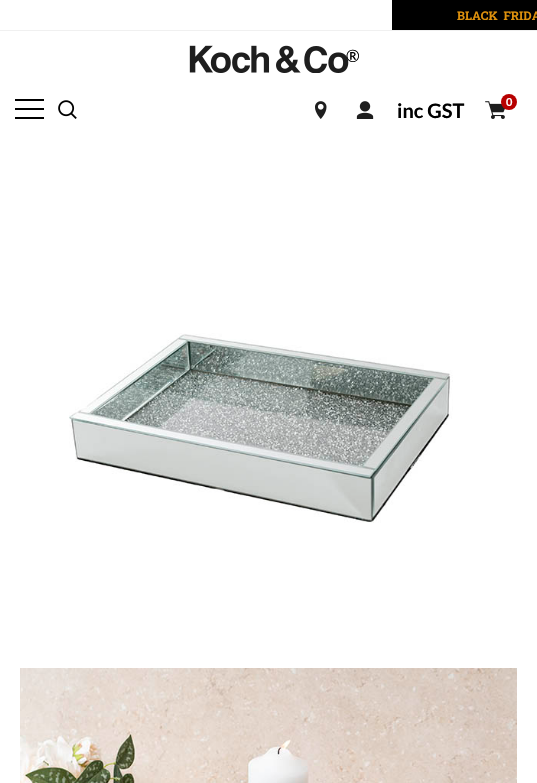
void draw(SkCanvas* canvas) {
	SkPaint paint;
	paint.setAntiAlias(true);
	canvas->clear(0xffffffff);
	paint.setColor(0xfff0f0f0);
	canvas->drawRect(SkRect::MakeXYWH(0, 30, 537, 1), paint);
	paint.setColor(0xff000000);
	canvas->drawRect(SkRect::MakeXYWH(392, 0, 145, 30), paint);
	SkFont f1(fontMgr->matchFamilyStyle("Roboto Slab", SkFontStyle::Bold()), 12);
	f1.setSubpixel(true);
	paint.setColor(0xffde910d);
	canvas->drawString("BLACK  FRIDA", 457, 20, f1, paint);
	canvas->drawImageRect(SkImages::DeferredFromEncodedData(SkData::MakeFromFileName("img1.png")), SkRect::MakeXYWH(189, 45, 160, 28), SkSamplingOptions());
	SkFont f2(fontMgr->matchFamilyStyle("Lato", SkFontStyle::Normal()), 17);
	f2.setSubpixel(true);
	paint.setColor(0xff000000);
	canvas->drawString("®", 346, 62, f2, paint);
	canvas->drawRect(SkRect::MakeXYWH(15, 99, 29, 2), paint);
	canvas->drawRect(SkRect::MakeXYWH(15, 108, 29, 2), paint);
	canvas->drawRect(SkRect::MakeXYWH(15, 117, 29, 2), paint);
	canvas->drawImageRect(SkImages::DeferredFromEncodedData(SkData::MakeFromFileName("img2.png")), SkRect::MakeXYWH(58, 100, 19, 19), SkSamplingOptions());
	canvas->drawImageRect(SkImages::DeferredFromEncodedData(SkData::MakeFromFileName("img3.png")), SkRect::MakeXYWH(315, 101, 12, 18), SkSamplingOptions());
	canvas->drawImageRect(SkImages::DeferredFromEncodedData(SkData::MakeFromFileName("img4.png")), SkRect::MakeXYWH(356, 101, 18, 18), SkSamplingOptions());
	SkFont f3(fontMgr->matchFamilyStyle("Lato", SkFontStyle::Bold()), 20);
	f3.setSubpixel(true);
	canvas->drawString("inc GST", 397, 118, f3, paint);
	canvas->drawImageRect(SkImages::DeferredFromEncodedData(SkData::MakeFromFileName("img5.png")), SkRect::MakeXYWH(485, 101, 21, 18), SkSamplingOptions());
	paint.setColor(0xffb70000);
	canvas->drawCircle(509, 102, 8, paint);
	SkFont f4(fontMgr->matchFamilyStyle("Lato", SkFontStyle::Bold()), 11);
	f4.setSubpixel(true);
	paint.setColor(0xffffffff);
	canvas->drawString("0", 506, 106, f4, paint);
	canvas->drawImageRect(SkImages::DeferredFromEncodedData(SkData::MakeFromFileName("img6.png")), SkRect::MakeXYWH(69, 333, 384, 190), SkSamplingOptions());
	canvas->drawImageRect(SkImages::DeferredFromEncodedData(SkData::MakeFromFileName("img7.png")), SkRect::MakeXYWH(20, 668, 497, 115), SkSamplingOptions());
}
